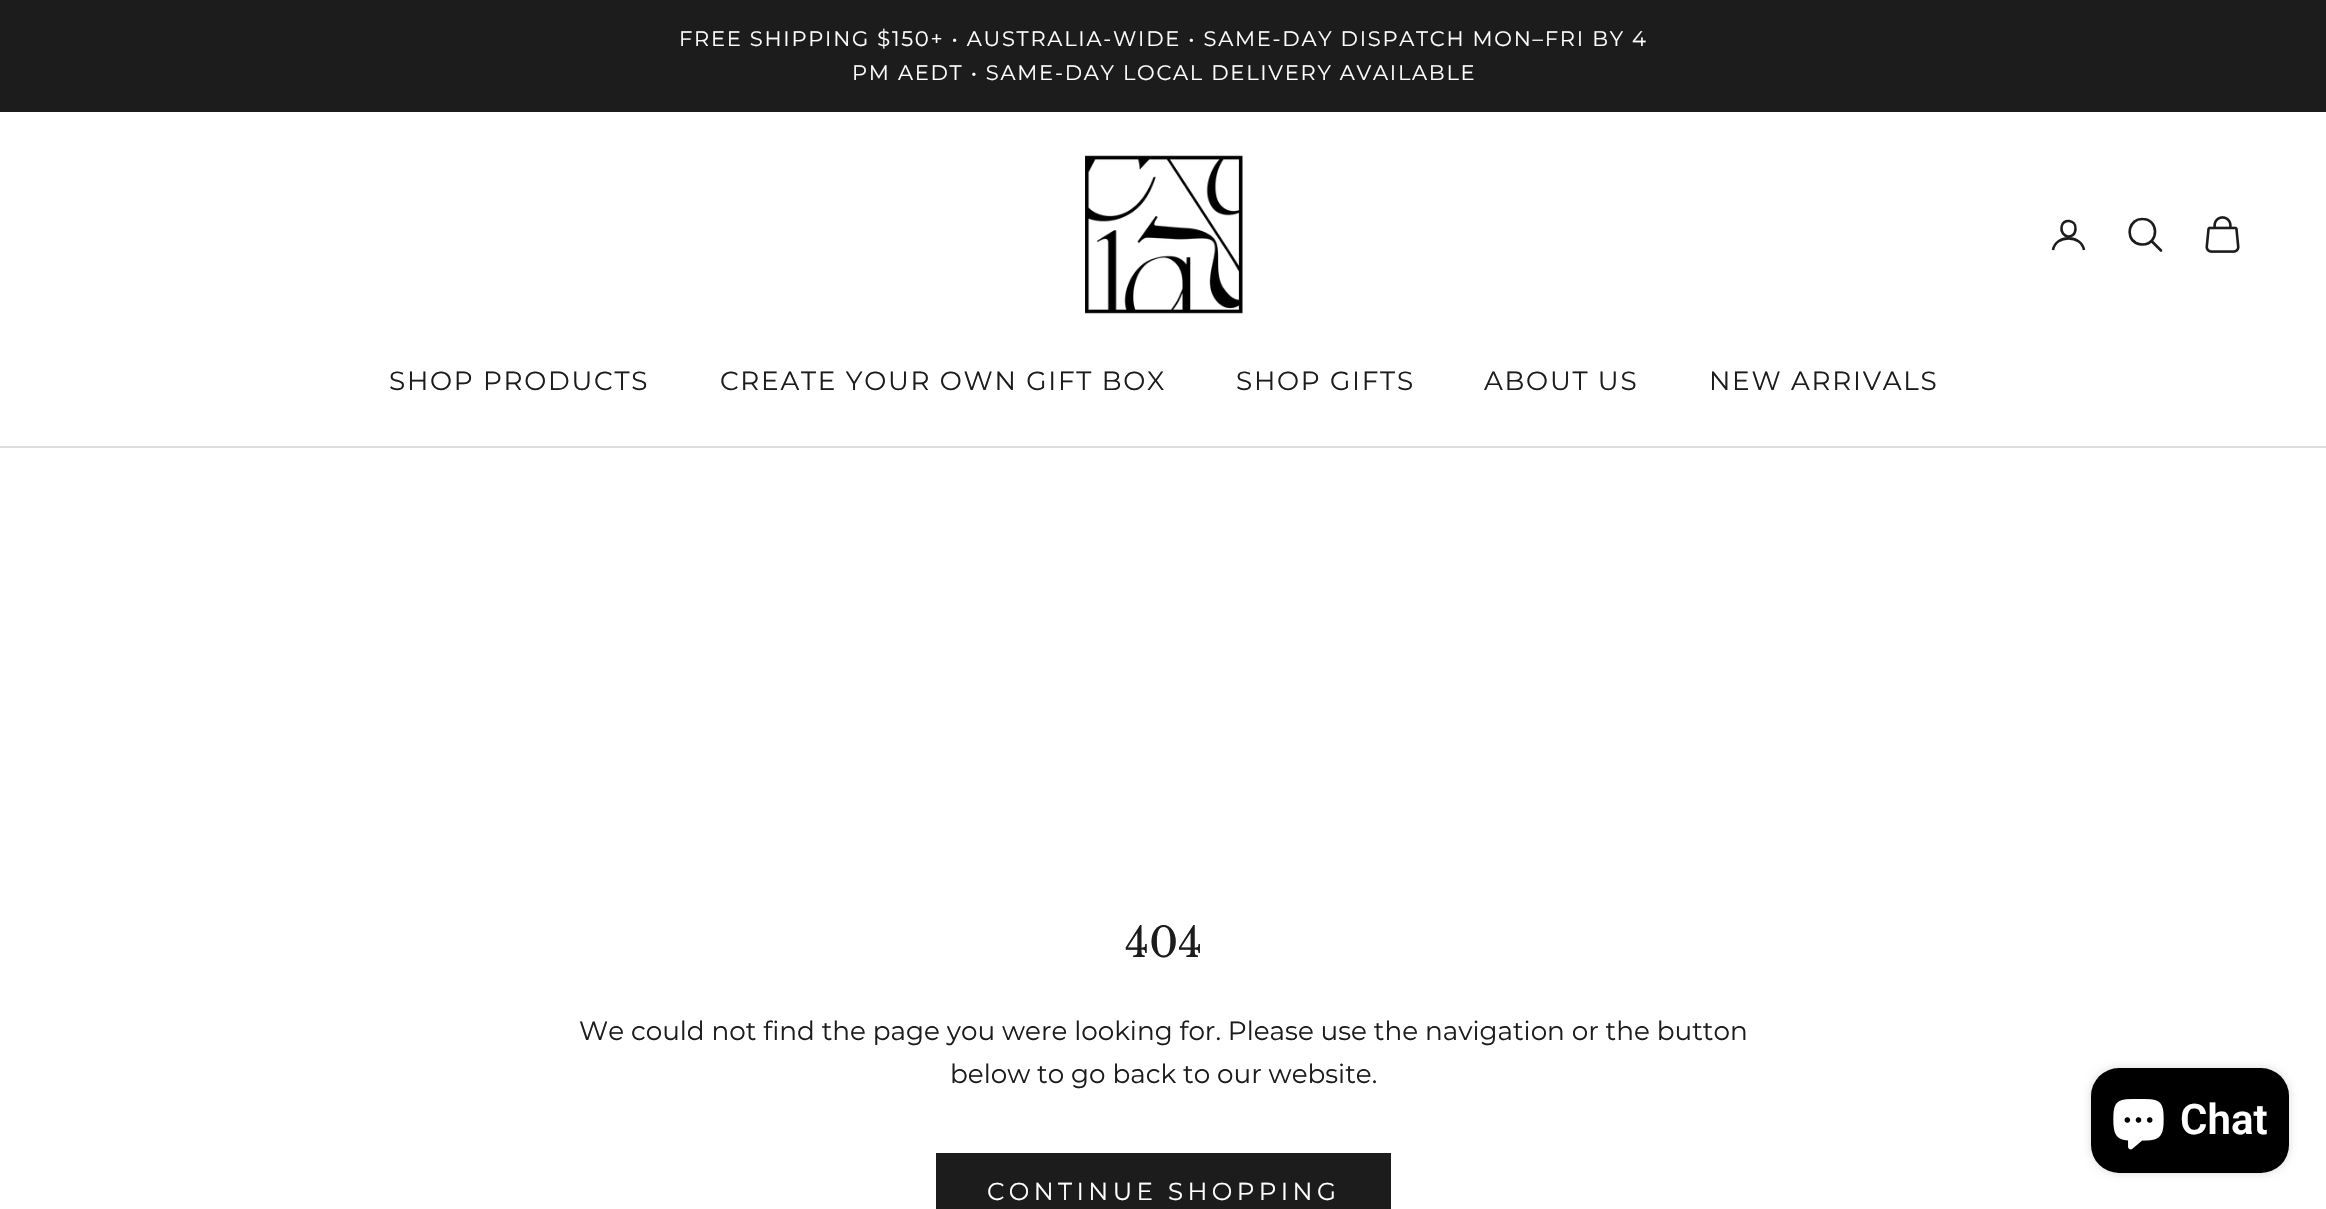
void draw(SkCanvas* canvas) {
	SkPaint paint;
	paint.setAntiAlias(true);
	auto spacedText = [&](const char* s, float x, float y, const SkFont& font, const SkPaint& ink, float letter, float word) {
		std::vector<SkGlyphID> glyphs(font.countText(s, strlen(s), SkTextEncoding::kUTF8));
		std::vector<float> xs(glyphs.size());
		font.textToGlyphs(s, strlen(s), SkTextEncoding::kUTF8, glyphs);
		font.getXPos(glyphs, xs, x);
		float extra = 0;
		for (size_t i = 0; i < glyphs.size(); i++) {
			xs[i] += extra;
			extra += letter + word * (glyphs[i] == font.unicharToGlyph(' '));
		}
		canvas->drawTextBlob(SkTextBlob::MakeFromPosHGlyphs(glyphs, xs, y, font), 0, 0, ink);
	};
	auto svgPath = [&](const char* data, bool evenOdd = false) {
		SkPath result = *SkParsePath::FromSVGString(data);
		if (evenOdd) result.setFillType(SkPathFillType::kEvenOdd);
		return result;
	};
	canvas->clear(0xffffffff);
	paint.setColor(0xff1c1c1c);
	canvas->drawRect(SkRect::MakeXYWH(0, 0, 2326, 112), paint);
	SkFont f1(fontMgr->matchFamilyStyle("Montserrat", SkFontStyle::Normal()), 21);
	f1.setSubpixel(true);
	paint.setColor(0xffffffff);
	spacedText("FREE SHIPPING $150+ • AUSTRALIA-WIDE • SAME-DAY DISPATCH MON–FRI BY 4", 679, 46, f1, paint, 1.75, 0);
	spacedText("PM AEDT • SAME-DAY LOCAL DELIVERY AVAILABLE", 852, 80, f1, paint, 1.75, 0);
	paint.setColor(0xffdddddd);
	canvas->drawRect(SkRect::MakeXYWH(0, 446, 2326, 2), paint);
	canvas->drawImageRect(SkImages::DeferredFromEncodedData(SkData::MakeFromFileName("img1.png")), SkRect::MakeXYWH(1085, 155, 158, 159), SkSamplingOptions());
	paint.setStroke(true);
	paint.setStrokeWidth(2.6);
	paint.setStrokeCap(SkPaint::kRound_Cap);
	paint.setStrokeJoin(SkPaint::kRound_Join);
	paint.setColor(0xff1c1c1c);
	canvas->drawPath(svgPath("M2075.5 229C2075 240.5 2060 238 2061.5 227C2062.5 218 2076.5 219.5 2075.5 229Z"), paint);
	paint.setStrokeCap(SkPaint::kButt_Cap);
	paint.setStrokeJoin(SkPaint::kMiter_Join);
	canvas->drawPath(svgPath("M2053 250C2055.5 234.5 2081.5 234.5 2084 250"), paint);
	canvas->drawPath(svgPath("M2142.5 219C2129.5 218.5 2124.5 236.5 2136 243C2138 244 2140.5 244.5 2142.5 244.5C2159.5 244 2159 219 2142.5 219Z"), paint);
	paint.setStrokeCap(SkPaint::kRound_Cap);
	canvas->drawPath(svgPath("M2152 241.5L2161 250.5"), paint);
	canvas->drawImageRect(SkImages::DeferredFromEncodedData(SkData::MakeFromFileName("img2.png")), SkRect::MakeXYWH(2205, 216, 35, 37), SkSamplingOptions());
	SkFont f2(fontMgr->matchFamilyStyle("Montserrat", SkFontStyle::Normal()), 26.25);
	f2.setSubpixel(true);
	paint.setStroke(false);
	spacedText("SHOP PRODUCTS", 389, 390, f2, paint, 1.75, 0);
	spacedText("CREATE YOUR OWN GIFT BOX", 720, 390, f2, paint, 1.75, 0);
	spacedText("SHOP GIFTS", 1236, 390, f2, paint, 1.75, 0);
	spacedText("ABOUT US", 1484, 390, f2, paint, 1.75, 0);
	spacedText("NEW ARRIVALS", 1709, 390, f2, paint, 1.75, 0);
	SkFont f3(fontMgr->matchFamilyStyle("Libre Baskerville", SkFontStyle::Normal()), 41);
	f3.setSubpixel(true);
	canvas->drawString("404", 1125, 957, f3, paint);
	canvas->drawString("We could not find the page you were looking for. Please use the navigation or the button", 579, 1040, f2, paint);
	canvas->drawString("below to go back to our website.", 950, 1083, f2, paint);
	canvas->drawRect(SkRect::MakeXYWH(937, 1154, 453, 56), paint);
	paint.setStroke(true);
	paint.setStrokeWidth(2);
	paint.setStrokeCap(SkPaint::kButt_Cap);
	canvas->drawRect(SkRect::MakeXYWH(937, 1154, 453, 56), paint);
	SkFont f4(fontMgr->matchFamilyStyle("Montserrat", SkFontStyle::Normal()), 24.5);
	f4.setSubpixel(true);
	paint.setStroke(false);
	paint.setColor(0xffffffff);
	spacedText("CONTINUE SHOPPING", 987, 1200, f4, paint, 4.4, 0);
	paint.setColor(0x26000000);
	paint.setMaskFilter(SkMaskFilter::MakeBlur(kNormal_SkBlurStyle, 4.5));
	canvas->drawRoundRect(SkRect::MakeXYWH(2091, 1068, 198, 105), 28, 28, paint);
	paint.setMaskFilter(nullptr);
	paint.setColor(0xff000000);
	canvas->drawRoundRect(SkRect::MakeXYWH(2091, 1068, 198, 105), 28, 28, paint);
	canvas->drawImageRect(SkImages::DeferredFromEncodedData(SkData::MakeFromFileName("img3.png")), SkRect::MakeXYWH(2113, 1099, 51, 51), SkSamplingOptions());
	SkFont f5(fontMgr->matchFamilyStyle("Roboto", SkFontStyle(600, SkFontStyle::kNormal_Width, SkFontStyle::kUpright_Slant)), 42);
	f5.setSubpixel(true);
	paint.setColor(0xffffffff);
	canvas->drawString("Chat", 2180, 1134, f5, paint);
}
